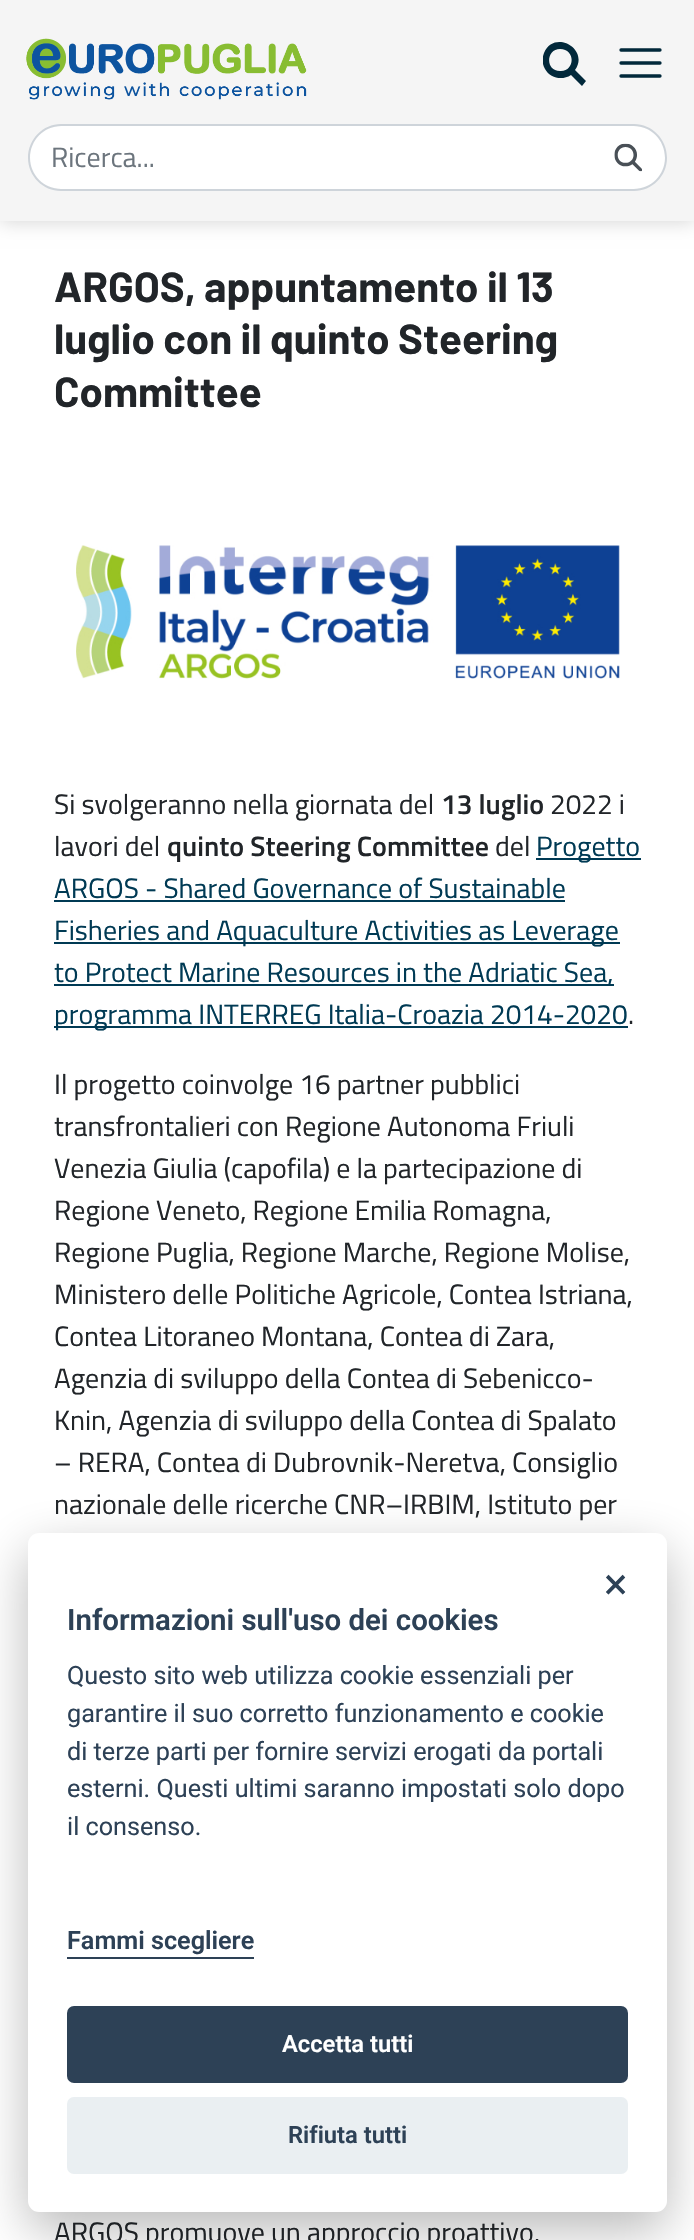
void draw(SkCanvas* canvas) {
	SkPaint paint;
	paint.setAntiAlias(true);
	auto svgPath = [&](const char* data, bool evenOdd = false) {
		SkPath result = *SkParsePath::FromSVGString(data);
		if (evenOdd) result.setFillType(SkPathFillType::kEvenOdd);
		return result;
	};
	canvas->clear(0xffffffff);
	paint.setColor(0x29000000);
	paint.setMaskFilter(SkMaskFilter::MakeBlur(kNormal_SkBlurStyle, 9));
	canvas->drawRect(SkRect::MakeXYWH(0, 2, 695, 220), paint);
	paint.setMaskFilter(nullptr);
	paint.setColor(0xfff5f5f5);
	canvas->drawRect(SkRect::MakeXYWH(0, 0, 694, 221), paint);
	canvas->drawImageRect(SkImages::DeferredFromEncodedData(SkData::MakeFromFileName("img1.png")), SkRect::MakeXYWH(26, 38, 281, 62), SkSamplingOptions());
	canvas->save();
	canvas->clipRect(SkRect::MakeXYWH(543, 42, 43, 44));
	paint.setColor(0xff01283a);
	canvas->drawPath(svgPath("M582 86L571 75C562 81 550 78 545 69C542 64 542 58 544 53C554 29 590 49 575 70L586 81ZM560 49C546 49 545 71 560 71C575 72 576 49 560 49Z"), paint);
	canvas->restore();
	paint.setStroke(true);
	paint.setStrokeWidth(3.3);
	paint.setStrokeCap(SkPaint::kRound_Cap);
	canvas->drawPath(svgPath("M621 50H660M621 63H660M621 76H660"), paint);
	paint.setStroke(false);
	paint.setColor(0xffffffff);
	canvas->drawPath(svgPath("M61.5 126H592V189H61.5C44 189 30 175 30 157.5C30 140 44 126 61.5 126Z"), paint);
	paint.setColor(0xffced4da);
	canvas->drawPath(svgPath("M61 124H592V191H61C43 191 28 176 28 158C28 139 43 124 61 124ZM61 126H592V189H61C44 189 30 175 30 158C30 140 44 126 61 126Z", true), paint);
	SkFont f1(fontMgr->matchFamilyStyle("Titillium Web", SkFontStyle::Normal()), 28);
	f1.setSubpixel(true);
	paint.setColor(0xff6c757d);
	canvas->drawString("Ricerca...", 51, 167, f1, paint);
	paint.setColor(0xffffffff);
	canvas->drawPath(svgPath("M592 126H633.5C651 126 665 140 665 157.5C665 175 651 189 633.5 189H592Z"), paint);
	paint.setColor(0xffced4da);
	canvas->drawPath(svgPath("M592 124H634C652 124 667 139 667 158C667 176 652 191 634 191H592ZM592 126H634C651 126 665 140 665 158C665 175 651 189 634 189H592Z", true), paint);
	canvas->drawImageRect(SkImages::DeferredFromEncodedData(SkData::MakeFromFileName("img2.png")), SkRect::MakeXYWH(614, 143, 28, 29), SkSamplingOptions());
	SkFont f2(fontMgr->matchFamilyStyle("Barlow", SkFontStyle::Bold()), 42);
	f2.setSubpixel(true);
	paint.setColor(0xff212529);
	canvas->drawString("ARGOS, appuntamento il 13", 54, 302, f2, paint);
	canvas->drawString("luglio con il quinto Steering", 54, 354, f2, paint);
	canvas->drawString("Committee", 54, 407, f2, paint);
	canvas->drawImageRect(SkImages::DeferredFromEncodedData(SkData::MakeFromFileName("img3.png")), SkRect::MakeXYWH(76, 545, 544, 134), SkSamplingOptions());
	canvas->drawString("Si svolgeranno nella giornata del", 54, 814, f1, paint);
	SkFont f3(fontMgr->matchFamilyStyle("Titillium Web", SkFontStyle(600, SkFontStyle::kNormal_Width, SkFontStyle::kUpright_Slant)), 28);
	f3.setSubpixel(true);
	canvas->drawString("13 luglio", 441, 814, f3, paint);
	canvas->drawString("2022 i", 550, 814, f1, paint);
	canvas->drawString("lavori del", 54, 856, f1, paint);
	canvas->drawString("quinto Steering Committee", 167, 856, f3, paint);
	canvas->drawString("del", 495, 856, f1, paint);
	paint.setColor(0xff003a54);
	canvas->drawRect(SkRect::MakeXYWH(536, 858, 105, 2), paint);
	canvas->drawString("Progetto", 536, 856, f1, paint);
	canvas->drawString("ARGOS - Shared Governance of Sustainable", 54, 898, f1, paint);
	canvas->drawRect(SkRect::MakeXYWH(54, 900, 511, 2), paint);
	canvas->drawRect(SkRect::MakeXYWH(54, 942, 566, 2), paint);
	canvas->drawString("Fisheries and Aquaculture Activities as Leverage", 54, 940, f1, paint);
	canvas->drawRect(SkRect::MakeXYWH(54, 984, 560, 2), paint);
	canvas->drawString("to Protect Marine Resources in the Adriatic Sea,", 54, 982, f1, paint);
	canvas->drawRect(SkRect::MakeXYWH(54, 1026, 574, 2), paint);
	canvas->drawString("programma INTERREG Italia-Croazia 2014-2020", 54, 1024, f1, paint);
	paint.setColor(0xff212529);
	canvas->drawString(".", 628, 1024, f1, paint);
	canvas->drawString("Il progetto coinvolge 16 partner pubblici", 54, 1094, f1, paint);
	canvas->drawString("transfrontalieri con Regione Autonoma Friuli", 54, 1136, f1, paint);
	canvas->drawString("Venezia Giulia (capofila) e la partecipazione di", 54, 1178, f1, paint);
	canvas->drawString("Regione Veneto, Regione Emilia Romagna,", 54, 1220, f1, paint);
	canvas->drawString("Regione Puglia, Regione Marche, Regione Molise,", 54, 1262, f1, paint);
	canvas->drawString("Ministero delle Politiche Agricole, Contea Istriana,", 54, 1304, f1, paint);
	canvas->drawString("Contea Litoraneo Montana, Contea di Zara,", 54, 1346, f1, paint);
	canvas->drawString("Agenzia di sviluppo della Contea di Sebenicco-", 54, 1388, f1, paint);
	canvas->drawString("Knin, Agenzia di sviluppo della Contea di Spalato", 54, 1430, f1, paint);
	canvas->drawString("– RERA, Contea di Dubrovnik-Neretva, Consiglio", 54, 1472, f1, paint);
	canvas->drawString("nazionale delle ricerche CNR–IRBIM, Istituto per", 54, 1514, f1, paint);
	canvas->drawString("ARGOS promuove un approccio proattivo,", 54, 2242, f1, paint);
	paint.setColor(0x47020203);
	paint.setMaskFilter(SkMaskFilter::MakeBlur(kNormal_SkBlurStyle, 26));
	canvas->drawRoundRect(SkRect::MakeXYWH(28, 1551, 639, 679), 11, 11, paint);
	paint.setMaskFilter(nullptr);
	paint.setColor(0xffffffff);
	canvas->drawRoundRect(SkRect::MakeXYWH(28, 1533, 639, 679), 11, 11, paint);
	SkFont f4(fontMgr->matchFamilyStyle("Roboto", SkFontStyle::Normal()), 44);
	f4.setSubpixel(true);
	paint.setColor(0xff2d4156);
	canvas->drawString("×", 604, 1599, f4, paint);
	SkFont f5(fontMgr->matchFamilyStyle("Roboto", SkFontStyle(600, SkFontStyle::kNormal_Width, SkFontStyle::kUpright_Slant)), 29.4);
	f5.setSubpixel(true);
	canvas->drawString("Informazioni sull'uso dei cookies", 67, 1630, f5, paint);
	SkFont f6(fontMgr->matchFamilyStyle("Roboto", SkFontStyle::Normal()), 25.2);
	f6.setSubpixel(true);
	canvas->drawString("Questo sito web utilizza cookie essenziali per", 67, 1684, f6, paint);
	canvas->drawString("garantire il suo corretto funzionamento e cookie", 67, 1722, f6, paint);
	canvas->drawString("di terze parti per fornire servizi erogati da portali", 67, 1760, f6, paint);
	canvas->drawString("esterni. Questi ultimi saranno impostati solo dopo", 67, 1797, f6, paint);
	canvas->drawString("il consenso.", 67, 1835, f6, paint);
	SkFont f7(fontMgr->matchFamilyStyle("Roboto", SkFontStyle(600, SkFontStyle::kNormal_Width, SkFontStyle::kUpright_Slant)), 25.2);
	f7.setSubpixel(true);
	canvas->drawString("Fammi scegliere", 67, 1949, f7, paint);
	canvas->drawRect(SkRect::MakeXYWH(67, 1957, 187, 2), paint);
	canvas->drawRoundRect(SkRect::MakeXYWH(67, 2006, 561, 77), 7, 7, paint);
	SkFont f8(fontMgr->matchFamilyStyle("Roboto", SkFontStyle(600, SkFontStyle::kNormal_Width, SkFontStyle::kUpright_Slant)), 23.75);
	f8.setSubpixel(true);
	paint.setColor(0xffffffff);
	canvas->drawString("Accetta tutti", 282, 2052, f8, paint);
	paint.setColor(0xffeaeff2);
	canvas->drawRoundRect(SkRect::MakeXYWH(67, 2097, 561, 77), 7, 7, paint);
	paint.setColor(0xff2d4156);
	canvas->drawString("Rifiuta tutti", 288, 2143, f8, paint);
}
